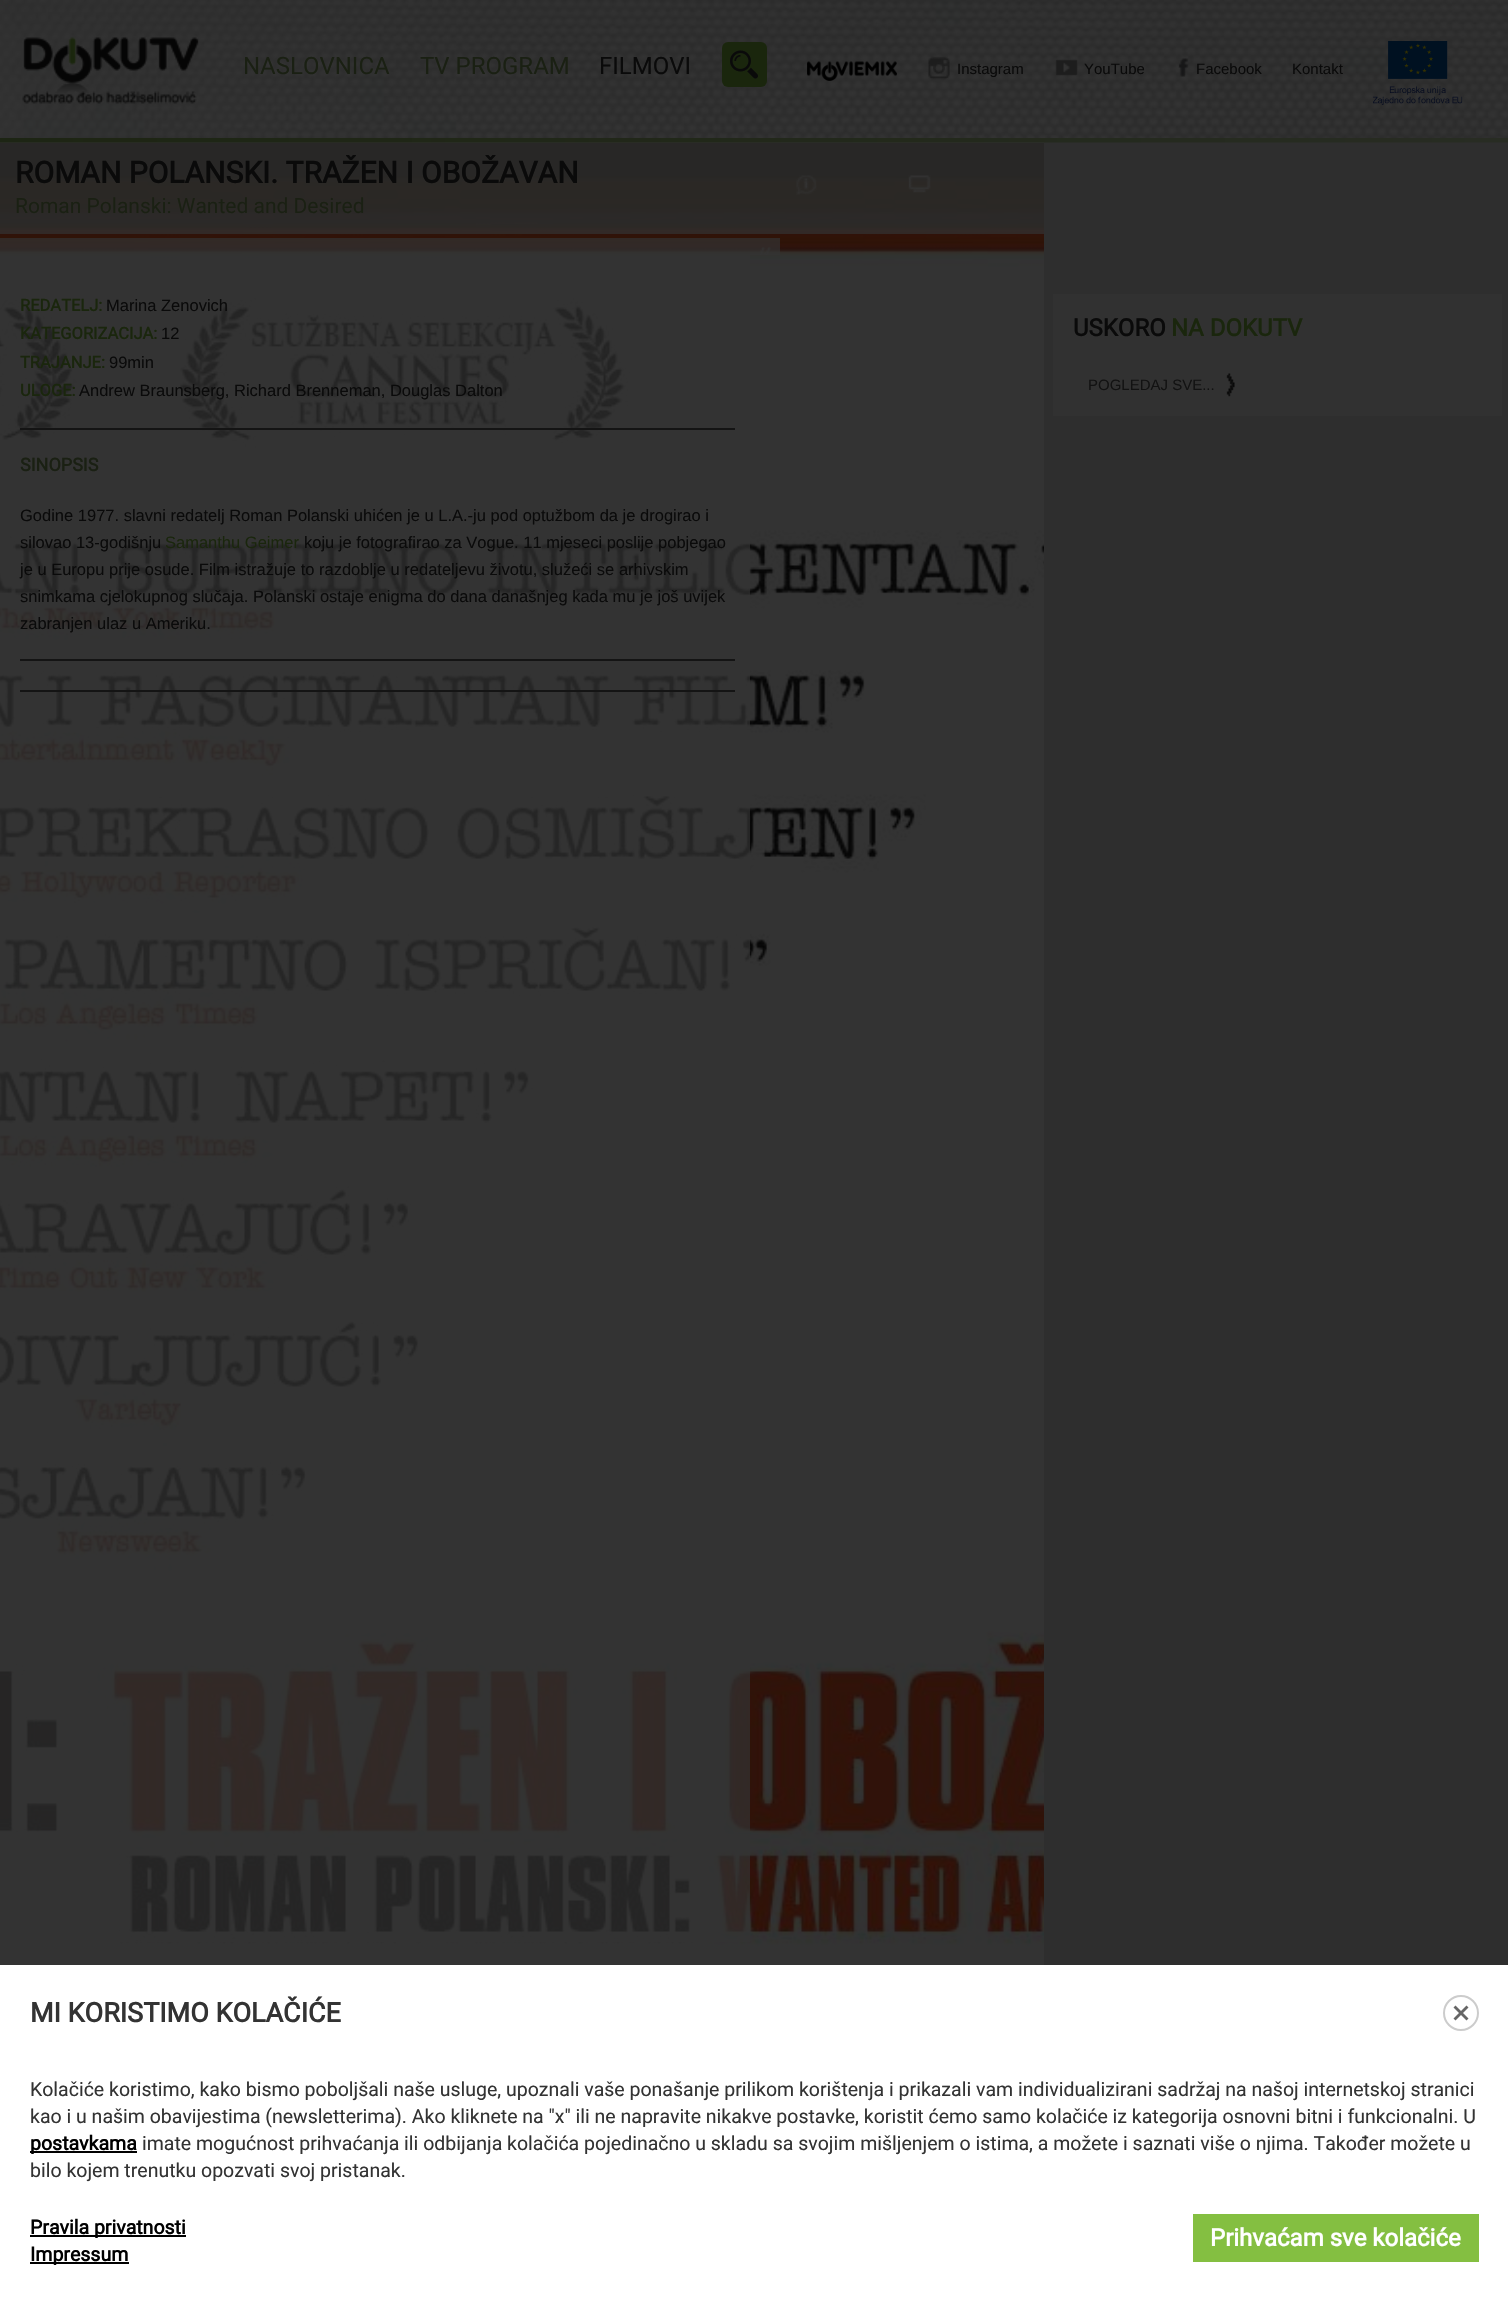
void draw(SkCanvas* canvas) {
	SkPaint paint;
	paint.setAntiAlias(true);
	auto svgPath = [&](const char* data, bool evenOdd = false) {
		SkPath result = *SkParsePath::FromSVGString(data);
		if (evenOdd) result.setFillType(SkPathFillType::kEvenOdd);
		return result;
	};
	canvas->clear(0xff2e2e2e);
	canvas->drawImageRect(SkImages::DeferredFromEncodedData(SkData::MakeFromFileName("img1.png")), SkRect::MakeXYWH(0, 0, 1508, 138), SkSamplingOptions());
	canvas->drawImageRect(SkImages::DeferredFromEncodedData(SkData::MakeFromFileName("img2.png")), SkRect::MakeXYWH(22, 37, 177, 67), SkSamplingOptions());
	SkFont f1(fontMgr->matchFamilyStyle("Roboto", SkFontStyle::Normal()), 24);
	f1.setSubpixel(true);
	paint.setColor(0xff1a2013);
	canvas->drawString("NASLOVNICA", 243, 74, f1, paint);
	canvas->drawString("TV PROGRAM", 420, 74, f1, paint);
	paint.setColor(0xff0a0a0a);
	canvas->drawString("FILMOVI", 599, 74, f1, paint);
	paint.setColor(0xff1a260d);
	canvas->drawRoundRect(SkRect::MakeXYWH(722, 42, 45, 45), 6, 6, paint);
	canvas->drawImageRect(SkImages::DeferredFromEncodedData(SkData::MakeFromFileName("img3.png")), SkRect::MakeXYWH(730, 50, 28, 29), SkSamplingOptions());
	canvas->drawImageRect(SkImages::DeferredFromEncodedData(SkData::MakeFromFileName("img4.png")), SkRect::MakeXYWH(807, 61, 90, 20), SkSamplingOptions());
	canvas->drawImageRect(SkImages::DeferredFromEncodedData(SkData::MakeFromFileName("img5.png")), SkRect::MakeXYWH(928, 56, 22, 24), SkSamplingOptions());
	SkFont f2(fontMgr->matchFamilyStyle("Liberation Sans", SkFontStyle::Normal()), 15);
	f2.setSubpixel(true);
	paint.setColor(0xff0a0a0a);
	canvas->drawString("Instagram", 957, 74, f2, paint);
	canvas->drawImageRect(SkImages::DeferredFromEncodedData(SkData::MakeFromFileName("img6.png")), SkRect::MakeXYWH(1055, 59, 23, 17), SkSamplingOptions());
	canvas->drawString("YouTube", 1084, 74, f2, paint);
	canvas->drawImageRect(SkImages::DeferredFromEncodedData(SkData::MakeFromFileName("img7.png")), SkRect::MakeXYWH(1178, 58, 11, 19), SkSamplingOptions());
	canvas->drawString("Facebook", 1196, 74, f2, paint);
	canvas->drawString("Kontakt", 1292, 74, f2, paint);
	canvas->drawImageRect(SkImages::DeferredFromEncodedData(SkData::MakeFromFileName("img8.png")), SkRect::MakeXYWH(1373, 41, 90, 64), SkSamplingOptions());
	paint.setColor(0xff313131);
	canvas->drawRect(SkRect::MakeXYWH(0, 142, 1044, 1), paint);
	canvas->drawImageRect(SkImages::DeferredFromEncodedData(SkData::MakeFromFileName("img10.png")), SkRect::MakeXYWH(0, 142, 1044, 1823), SkSamplingOptions());
	paint.setColor(0xb0333333);
	canvas->drawRect(SkRect::MakeXYWH(0, 142, 1044, 92), paint);
	canvas->drawImageRect(SkImages::DeferredFromEncodedData(SkData::MakeFromFileName("img9.png")), SkRect::MakeXYWH(0, 138, 1508, 5), SkSamplingOptions());
	SkFont f3(fontMgr->matchFamilyStyle("Roboto", SkFontStyle::Bold()), 30);
	f3.setSubpixel(true);
	paint.setColor(0xff0a0a0a);
	canvas->drawString("ROMAN POLANSKI. TRAŽEN I OBOŽAVAN", 15, 183, f3, paint);
	canvas->drawImageRect(SkImages::DeferredFromEncodedData(SkData::MakeFromFileName("img11.png")), SkRect::MakeXYWH(796, 175, 21, 20), SkSamplingOptions());
	canvas->drawImageRect(SkImages::DeferredFromEncodedData(SkData::MakeFromFileName("img12.png")), SkRect::MakeXYWH(908, 175, 23, 18), SkSamplingOptions());
	SkFont f4(fontMgr->matchFamilyStyle("Roboto", SkFontStyle::Normal()), 21);
	f4.setSubpixel(true);
	paint.setColor(0xff1a2013);
	canvas->drawString("Roman Polanski: Wanted and Desired", 15, 213, f4, paint);
	paint.setColor(0xb0333333);
	canvas->drawRect(SkRect::MakeXYWH(0, 238, 750, 1704), paint);
	canvas->drawRect(SkRect::MakeXYWH(750, 238, 30, 17), paint);
	canvas->drawImageRect(SkImages::DeferredFromEncodedData(SkData::MakeFromFileName("img13.png")), SkRect::MakeXYWH(760, 247, 11, 8), SkSamplingOptions());
	paint.setColor(0xff141414);
	canvas->drawRect(SkRect::MakeXYWH(20, 428, 715, 2), paint);
	SkFont f5(fontMgr->matchFamilyStyle("Roboto", SkFontStyle::Bold()), 16.5);
	f5.setSubpixel(true);
	paint.setColor(0xff1a260d);
	canvas->drawString("REDATELJ:", 20, 311, f5, paint);
	SkFont f6(fontMgr->matchFamilyStyle("Liberation Sans", SkFontStyle::Normal()), 16.5);
	f6.setSubpixel(true);
	paint.setColor(0xff0a0a0a);
	canvas->drawString("Marina Zenovich", 106, 311, f6, paint);
	paint.setColor(0xff1a260d);
	canvas->drawString("KATEGORIZACIJA:", 20, 339, f5, paint);
	paint.setColor(0xff0a0a0a);
	canvas->drawString("12", 161, 339, f6, paint);
	paint.setColor(0xff1a260d);
	canvas->drawString("TRAJANJE:", 20, 368, f5, paint);
	paint.setColor(0xff0a0a0a);
	canvas->drawString("99min", 109, 368, f6, paint);
	paint.setColor(0xff1a260d);
	canvas->drawString("ULOGE:", 20, 396, f5, paint);
	paint.setColor(0xff0a0a0a);
	canvas->drawString("Andrew Braunsberg, Richard Brenneman, Douglas Dalton", 79, 396, f6, paint);
	paint.setColor(0xff141414);
	canvas->drawRect(SkRect::MakeXYWH(20, 659, 715, 2), paint);
	SkFont f7(fontMgr->matchFamilyStyle("Roboto", SkFontStyle::Bold()), 18);
	f7.setSubpixel(true);
	paint.setColor(0xff1a2013);
	canvas->drawString("SINOPSIS", 20, 471, f7, paint);
	paint.setColor(0xff0a0a0a);
	canvas->drawString("Godine 1977. slavni redatelj Roman Polanski uhićen je u L.A.-ju pod optužbom da je drogirao i", 20, 521, f6, paint);
	canvas->drawString("silovao 13-godišnju", 20, 548, f6, paint);
	paint.setColor(0xff1a260d);
	canvas->drawString("Samanthu Geimer", 165, 548, f6, paint);
	paint.setColor(0xff0a0a0a);
	canvas->drawString("koju je fotografirao za Vogue. 11 mjeseci poslije pobjegao", 304, 548, f6, paint);
	canvas->drawString("je u Europu prije osude. Film istražuje to razdoblje u redateljevu životu, služeći se arhivskim", 20, 575, f6, paint);
	canvas->drawString("snimkama cjelokupnog slučaja. Polanski ostaje enigma do dana današnjeg kada mu je još uvijek", 20, 602, f6, paint);
	canvas->drawString("zabranjen ulaz u Ameriku.", 20, 629, f6, paint);
	paint.setColor(0xff141414);
	canvas->drawRect(SkRect::MakeXYWH(20, 690, 715, 2), paint);
	paint.setColor(0xff313131);
	canvas->drawRect(SkRect::MakeXYWH(1053, 294, 449, 122), paint);
	SkFont f8(fontMgr->matchFamilyStyle("Roboto", SkFontStyle::Bold()), 24);
	f8.setSubpixel(true);
	paint.setColor(0xff0a0a0a);
	canvas->drawString("USKORO", 1073, 336, f8, paint);
	paint.setColor(0xff1a260d);
	canvas->drawString("NA DOKUTV", 1171, 336, f8, paint);
	canvas->drawImageRect(SkImages::DeferredFromEncodedData(SkData::MakeFromFileName("img14.png")), SkRect::MakeXYWH(1226, 373, 9, 24), SkSamplingOptions());
	paint.setColor(0xff121212);
	canvas->drawString("POGLEDAJ SVE...", 1088, 390, f2, paint);
	paint.setColor(0xffffffff);
	canvas->drawRect(SkRect::MakeXYWH(0, 1965, 1508, 348), paint);
	SkFont f9(fontMgr->matchFamilyStyle("Roboto", SkFontStyle::Bold()), 27);
	f9.setSubpixel(true);
	paint.setColor(0xff333333);
	canvas->drawString("MI KORISTIMO KOLAČIĆE", 30, 2022, f9, paint);
	paint.setStroke(true);
	paint.setStrokeWidth(2);
	paint.setColor(0xffcccccc);
	canvas->drawCircle(1461, 2013, 17, paint);
	paint.setStroke(false);
	paint.setColor(0xff666666);
	canvas->drawPath(svgPath("M1455.5 2005.5L1468.5 2018.5L1466.5 2020.5L1453.5 2007.5Z"), paint);
	canvas->drawPath(svgPath("M1468.5 2007.5L1455.5 2020.5L1453.5 2018.5L1466.5 2005.5Z"), paint);
	SkFont f10(fontMgr->matchFamilyStyle("Roboto", SkFontStyle::Normal()), 19.5);
	f10.setSubpixel(true);
	paint.setColor(0xff333333);
	canvas->drawString("Kolačiće koristimo, kako bismo poboljšali naše usluge, upoznali vaše ponašanje prilikom korištenja i prikazali vam individualizirani sadržaj na našoj internetskoj stranici", 30, 2096, f10, paint);
	canvas->drawString("kao i u našim obavijestima (newsletterima). Ako kliknete na \"x\" ili ne napravite nikakve postavke, koristit ćemo samo kolačiće iz kategorija osnovni bitni i funkcionalni. U", 30, 2123, f10, paint);
	paint.setColor(0xff000000);
	canvas->drawRect(SkRect::MakeXYWH(30, 2151, 107, 2), paint);
	SkFont f11(fontMgr->matchFamilyStyle("Roboto", SkFontStyle::Bold()), 19.5);
	f11.setSubpixel(true);
	canvas->drawString("postavkama", 30, 2150, f11, paint);
	paint.setColor(0xff333333);
	canvas->drawString("imate mogućnost prihvaćanja ili odbijanja kolačića pojedinačno u skladu sa svojim mišljenjem o istima, a možete i saznati više o njima. Također možete u", 142, 2150, f10, paint);
	canvas->drawString("bilo kojem trenutku opozvati svoj pristanak.", 30, 2177, f10, paint);
	paint.setColor(0xff000000);
	canvas->drawRect(SkRect::MakeXYWH(30, 2235, 156, 2), paint);
	canvas->drawString("Pravila privatnosti", 30, 2234, f11, paint);
	paint.setColor(0xff84bf41);
	canvas->drawRect(SkRect::MakeXYWH(1193, 2214, 286, 48), paint);
	paint.setColor(0xffffffff);
	canvas->drawString("Prihvaćam sve kolačiće", 1210, 2246, f8, paint);
	paint.setColor(0xff000000);
	canvas->drawRect(SkRect::MakeXYWH(30, 2262, 99, 2), paint);
	canvas->drawString("Impressum", 30, 2261, f11, paint);
}
